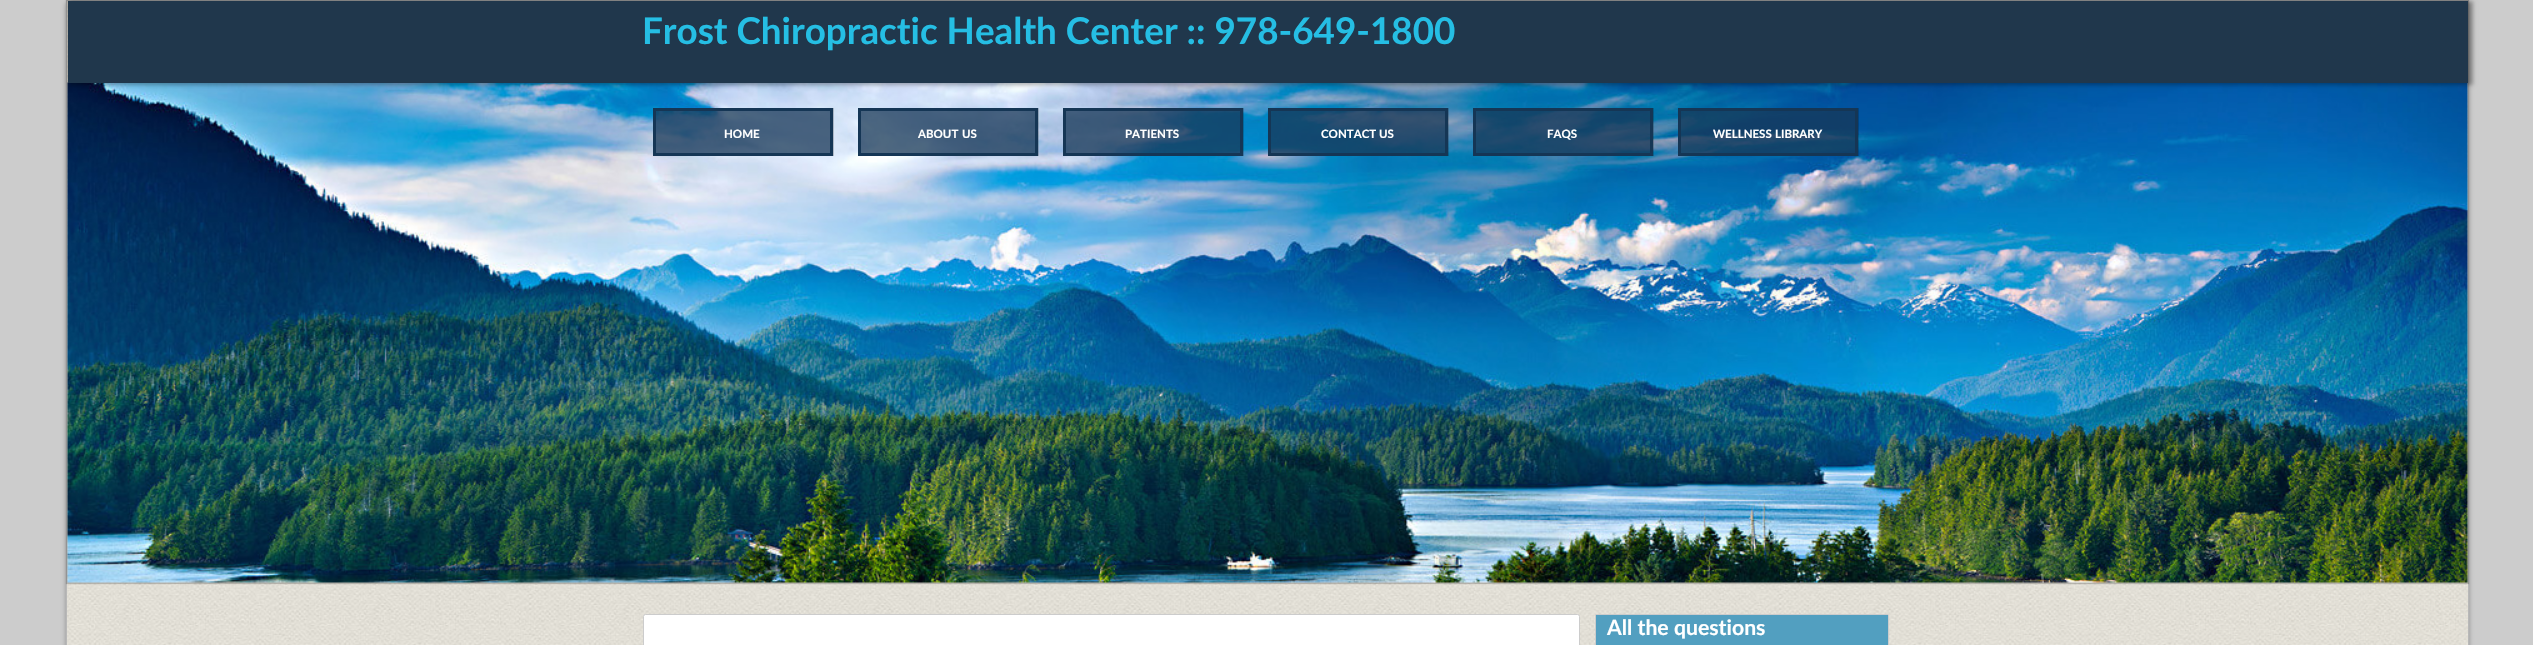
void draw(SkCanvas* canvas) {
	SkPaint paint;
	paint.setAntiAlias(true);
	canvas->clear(0xffcccccc);
	paint.setColor(0x66323232);
	paint.setMaskFilter(SkMaskFilter::MakeBlur(kNormal_SkBlurStyle, 2.5));
	canvas->drawRect(SkRect::MakeXYWH(66, 3, 2403, 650), paint);
	paint.setMaskFilter(nullptr);
	canvas->drawImageRect(SkImages::DeferredFromEncodedData(SkData::MakeFromFileName("img1.png")), SkRect::MakeXYWH(67, 1, 2401, 644), SkSamplingOptions());
	paint.setStroke(true);
	paint.setStrokeWidth(1);
	paint.setColor(0xffb8b8b8);
	canvas->drawRect(SkRect::MakeXYWH(66.5, 0.5, 2402, 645), paint);
	paint.setStroke(false);
	paint.setColor(0x33000000);
	paint.setMaskFilter(SkMaskFilter::MakeBlur(kNormal_SkBlurStyle, 0.5));
	canvas->drawRect(SkRect::MakeXYWH(66, 0, 2403, 584), paint);
	paint.setMaskFilter(nullptr);
	canvas->drawImageRect(SkImages::DeferredFromEncodedData(SkData::MakeFromFileName("img2.png")), SkRect::MakeXYWH(67, 82, 2401, 501), SkSamplingOptions());
	paint.setColor(0x4d000000);
	paint.setMaskFilter(SkMaskFilter::MakeBlur(kNormal_SkBlurStyle, 2));
	canvas->drawRect(SkRect::MakeXYWH(70, 1, 2403, 84), paint);
	paint.setMaskFilter(nullptr);
	paint.setColor(0xff20374c);
	canvas->drawRect(SkRect::MakeXYWH(68, 1, 2400, 82), paint);
	SkFont f1(fontMgr->matchFamilyStyle("Lato", SkFontStyle::Bold()), 36.8);
	f1.setSubpixel(true);
	paint.setColor(0xff25bee4);
	canvas->drawString("Frost Chiropractic Health Center :: 978-649-1800", 642, 44, f1, paint);
	paint.setColor(0x33000000);
	canvas->drawRect(SkRect::MakeXYWH(833, 108, 1, 48), paint);
	paint.setColor(0x80153655);
	canvas->drawRect(SkRect::MakeXYWH(654.5, 109.5, 177, 45), paint);
	paint.setStroke(true);
	paint.setStrokeWidth(3);
	paint.setColor(0xff153655);
	canvas->drawRect(SkRect::MakeXYWH(654.5, 109.5, 177, 45), paint);
	paint.setStroke(false);
	paint.setColor(0x80153655);
	canvas->drawRect(SkRect::MakeXYWH(656, 111, 174, 42), paint);
	SkFont f2(fontMgr->matchFamilyStyle("Lato", SkFontStyle::Bold()), 11.5);
	f2.setSubpixel(true);
	paint.setColor(0xffffffff);
	canvas->drawString("HOME", 724, 138, f2, paint);
	paint.setColor(0x33000000);
	canvas->drawRect(SkRect::MakeXYWH(1038, 108, 1, 48), paint);
	paint.setColor(0x80153655);
	canvas->drawRect(SkRect::MakeXYWH(859.5, 109.5, 177, 45), paint);
	paint.setStroke(true);
	paint.setColor(0xff153655);
	canvas->drawRect(SkRect::MakeXYWH(859.5, 109.5, 177, 45), paint);
	paint.setStroke(false);
	paint.setColor(0x80153655);
	canvas->drawRect(SkRect::MakeXYWH(861, 111, 174, 42), paint);
	paint.setColor(0xffffffff);
	canvas->drawString("ABOUT", 918, 138, f2, paint);
	canvas->drawString("US", 962, 138, f2, paint);
	paint.setColor(0x33000000);
	canvas->drawRect(SkRect::MakeXYWH(1243, 108, 1, 48), paint);
	paint.setColor(0x80153655);
	canvas->drawRect(SkRect::MakeXYWH(1064.5, 109.5, 177, 45), paint);
	paint.setStroke(true);
	paint.setColor(0xff153655);
	canvas->drawRect(SkRect::MakeXYWH(1064.5, 109.5, 177, 45), paint);
	paint.setStroke(false);
	paint.setColor(0x80153655);
	canvas->drawRect(SkRect::MakeXYWH(1066, 111, 174, 42), paint);
	paint.setColor(0xffffffff);
	canvas->drawString("PATIENTS", 1125, 138, f2, paint);
	paint.setColor(0x33000000);
	canvas->drawRect(SkRect::MakeXYWH(1448, 108, 1, 48), paint);
	paint.setColor(0x80153655);
	canvas->drawRect(SkRect::MakeXYWH(1269.5, 109.5, 177, 45), paint);
	paint.setStroke(true);
	paint.setColor(0xff153655);
	canvas->drawRect(SkRect::MakeXYWH(1269.5, 109.5, 177, 45), paint);
	paint.setStroke(false);
	paint.setColor(0x80153655);
	canvas->drawRect(SkRect::MakeXYWH(1271, 111, 174, 42), paint);
	paint.setColor(0xffffffff);
	canvas->drawString("CONTACT", 1321, 138, f2, paint);
	canvas->drawString("US", 1379, 138, f2, paint);
	paint.setColor(0x33000000);
	canvas->drawRect(SkRect::MakeXYWH(1653, 108, 1, 48), paint);
	paint.setColor(0x80153655);
	canvas->drawRect(SkRect::MakeXYWH(1474.5, 109.5, 177, 45), paint);
	paint.setStroke(true);
	paint.setColor(0xff153655);
	canvas->drawRect(SkRect::MakeXYWH(1474.5, 109.5, 177, 45), paint);
	paint.setStroke(false);
	paint.setColor(0x80153655);
	canvas->drawRect(SkRect::MakeXYWH(1476, 111, 174, 42), paint);
	paint.setColor(0xffffffff);
	canvas->drawString("FAQS", 1547, 138, f2, paint);
	paint.setColor(0x33000000);
	canvas->drawRect(SkRect::MakeXYWH(1858, 108, 1, 48), paint);
	paint.setColor(0x80153655);
	canvas->drawRect(SkRect::MakeXYWH(1679.5, 109.5, 177, 45), paint);
	paint.setStroke(true);
	paint.setColor(0xff153655);
	canvas->drawRect(SkRect::MakeXYWH(1679.5, 109.5, 177, 45), paint);
	paint.setStroke(false);
	paint.setColor(0x80153655);
	canvas->drawRect(SkRect::MakeXYWH(1681, 111, 174, 42), paint);
	paint.setColor(0xffffffff);
	canvas->drawString("WELLNESS", 1713, 138, f2, paint);
	canvas->drawString("LIBRARY", 1775, 138, f2, paint);
	canvas->drawRoundRect(SkRect::MakeXYWH(643.5, 614.5, 936, 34), 2, 2, paint);
	paint.setStroke(true);
	paint.setStrokeWidth(1);
	paint.setColor(0xffcccccc);
	canvas->drawRoundRect(SkRect::MakeXYWH(643.5, 614.5, 936, 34), 2, 2, paint);
	canvas->drawRoundRect(SkRect::MakeXYWH(1595.5, 614.5, 293, 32), 0.5, 0.5, paint);
	paint.setStroke(false);
	paint.setColor(0xff529fc0);
	canvas->drawRect(SkRect::MakeXYWH(1596, 615, 292, 30), paint);
	SkFont f3(fontMgr->matchFamilyStyle("Lato", SkFontStyle::Bold()), 21.25);
	f3.setSubpixel(true);
	paint.setColor(0xffffffff);
	canvas->drawString("All the questions", 1607, 635, f3, paint);
}
